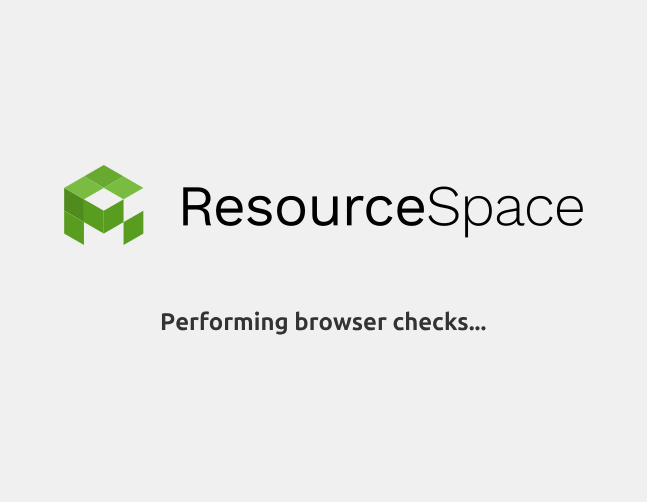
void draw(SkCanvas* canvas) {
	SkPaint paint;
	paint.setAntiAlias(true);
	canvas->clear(0xfff0f0f0);
	canvas->drawImageRect(SkImages::DeferredFromEncodedData(SkData::MakeFromFileName("img1.png")), SkRect::MakeXYWH(64, 165, 519, 80), SkSamplingOptions());
	SkFont f1(fontMgr->matchFamilyStyle("Ubuntu", SkFontStyle::Bold()), 24);
	f1.setSubpixel(true);
	paint.setColor(0xff333333);
	canvas->drawString("Performing browser checks...", 160, 330, f1, paint);
}
